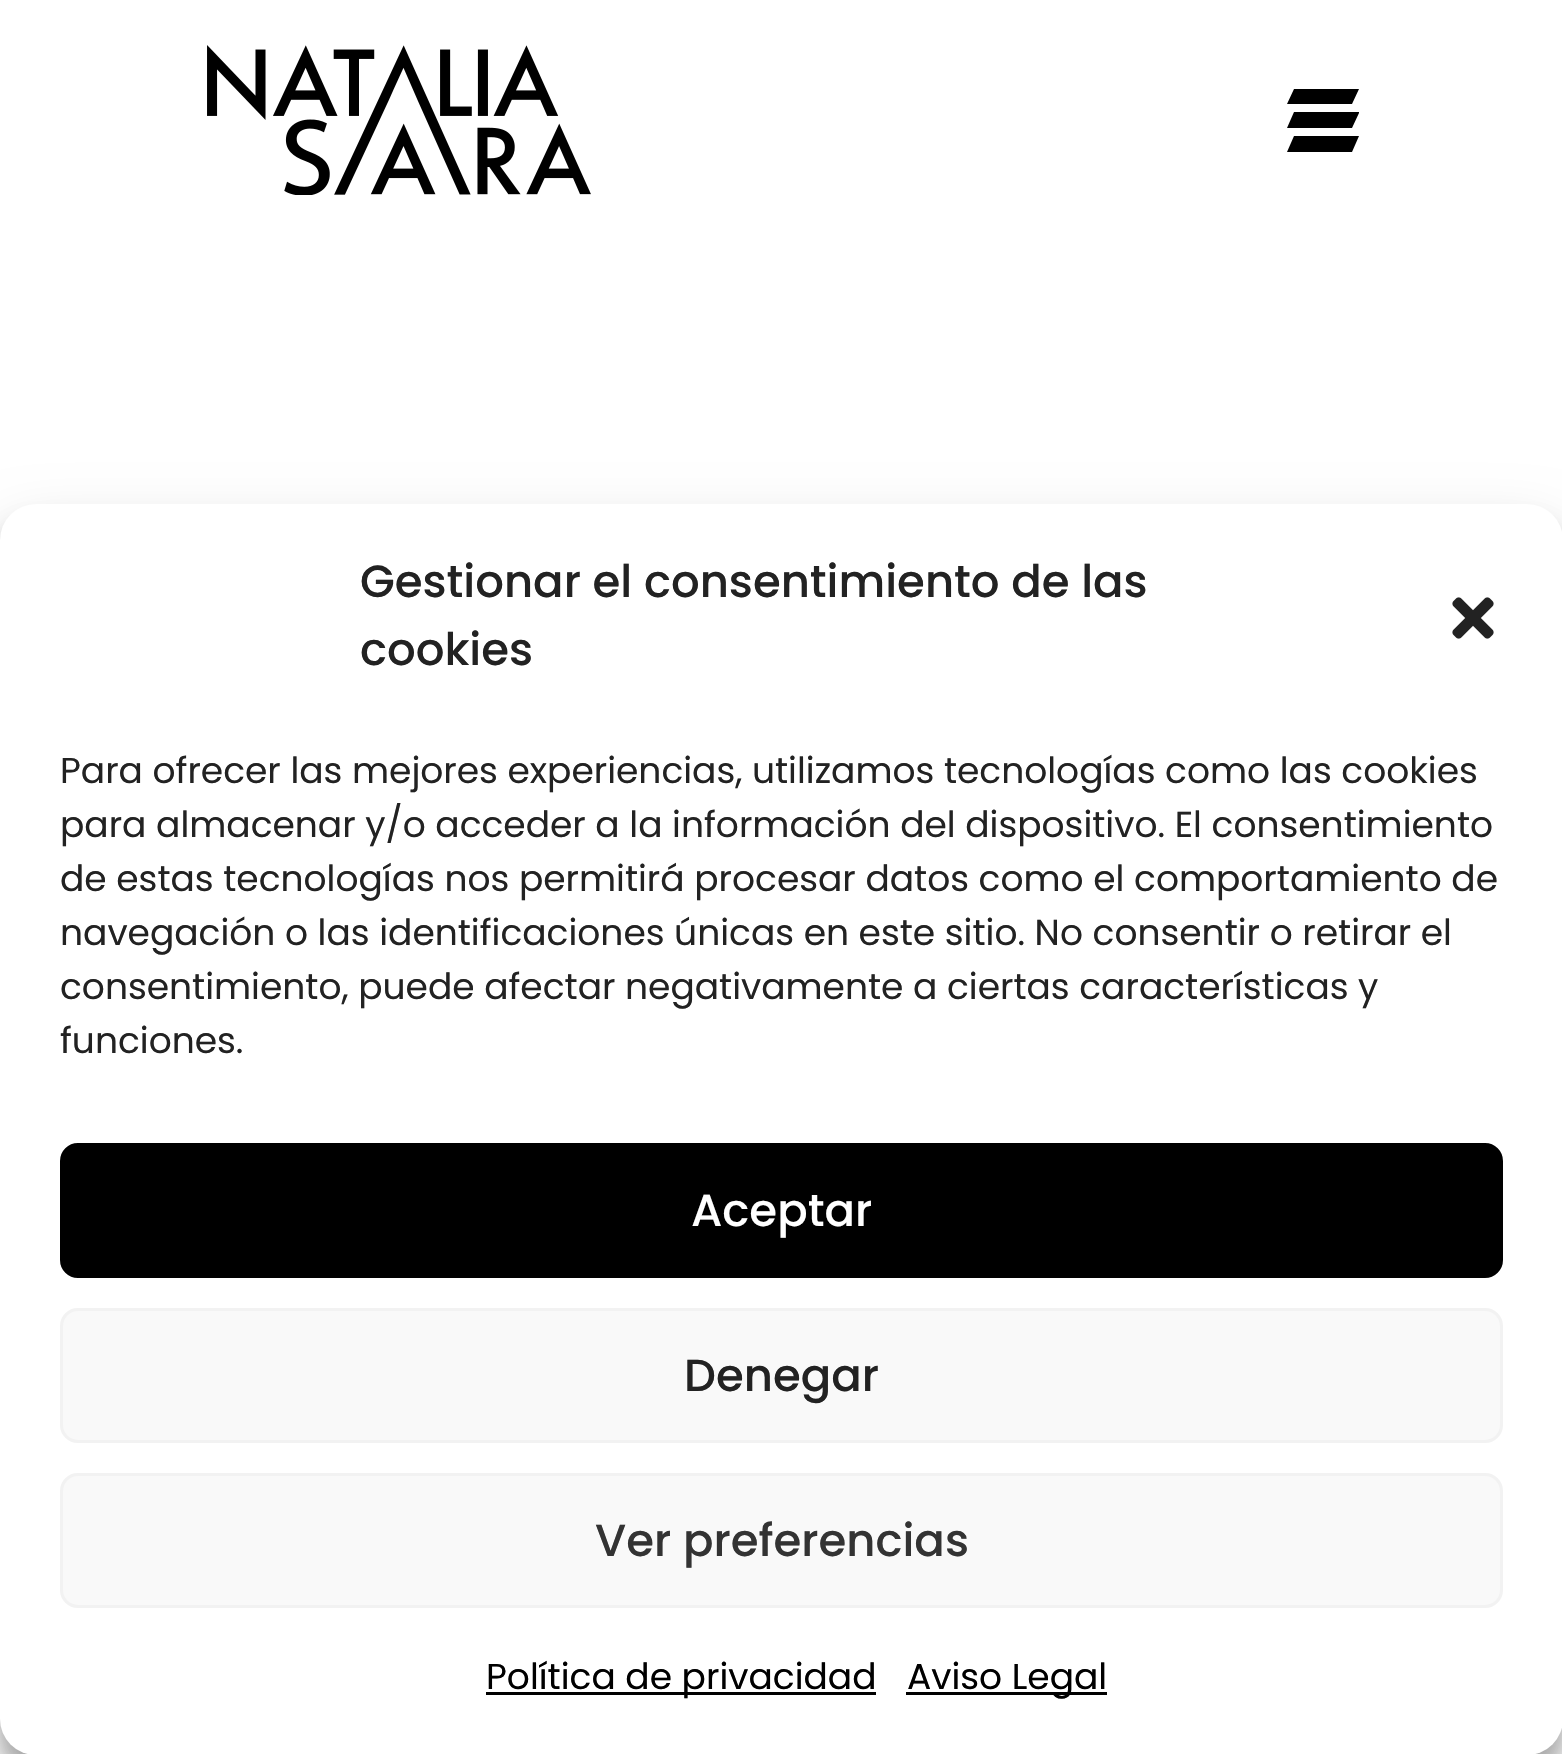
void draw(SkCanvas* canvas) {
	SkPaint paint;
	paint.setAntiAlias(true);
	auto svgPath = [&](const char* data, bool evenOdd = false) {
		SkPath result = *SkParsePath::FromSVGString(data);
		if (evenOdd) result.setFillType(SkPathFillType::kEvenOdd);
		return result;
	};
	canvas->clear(0xffffffff);
	canvas->drawImageRect(SkImages::DeferredFromEncodedData(SkData::MakeFromFileName("img1.png")), SkRect::MakeXYWH(207, 45, 384, 150), SkSamplingOptions());
	paint.setColor(0xff000000);
	canvas->drawPath(svgPath("M1359 89L1352 104H1287L1294 89ZM1359 113L1352 128H1287L1294 112H1359ZM1359 136L1352 152H1287L1294 136Z"), paint);
	paint.setColor(0x3b000000);
	paint.setMaskFilter(SkMaskFilter::MakeBlur(kNormal_SkBlurStyle, 9));
	canvas->drawRoundRect(SkRect::MakeXYWH(0, 522, 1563, 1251), 36, 36, paint);
	paint.setMaskFilter(nullptr);
	paint.setColor(0x30000000);
	paint.setMaskFilter(SkMaskFilter::MakeBlur(kNormal_SkBlurStyle, 30));
	canvas->drawRoundRect(SkRect::MakeXYWH(0, 534, 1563, 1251), 36, 36, paint);
	paint.setMaskFilter(nullptr);
	paint.setColor(0xffffffff);
	canvas->drawRoundRect(SkRect::MakeXYWH(0, 504, 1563, 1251), 36, 36, paint);
	SkFont f1(fontMgr->matchFamilyStyle("Poppins", SkFontStyle(500, SkFontStyle::kNormal_Width, SkFontStyle::kUpright_Slant)), 45);
	f1.setSubpixel(true);
	paint.setColor(0xff222222);
	canvas->drawString("Gestionar el consentimiento de las", 360, 597, f1, paint);
	canvas->drawString("cookies", 360, 665, f1, paint);
	canvas->drawImageRect(SkImages::DeferredFromEncodedData(SkData::MakeFromFileName("img2.png")), SkRect::MakeXYWH(1452, 597, 42, 42), SkSamplingOptions());
	SkFont f2(fontMgr->matchFamilyStyle("Poppins", SkFontStyle::Normal()), 36);
	f2.setSubpixel(true);
	canvas->drawString("Para ofrecer las mejores experiencias, utilizamos tecnologías como las cookies", 60, 783, f2, paint);
	canvas->drawString("para almacenar y/o acceder a la información del dispositivo. El consentimiento", 60, 837, f2, paint);
	canvas->drawString("de estas tecnologías nos permitirá procesar datos como el comportamiento de", 60, 891, f2, paint);
	canvas->drawString("navegación o las identificaciones únicas en este sitio. No consentir o retirar el", 60, 945, f2, paint);
	canvas->drawString("consentimiento, puede afectar negativamente a ciertas características y", 60, 999, f2, paint);
	canvas->drawString("funciones.", 60, 1053, f2, paint);
	paint.setColor(0xff000000);
	canvas->drawRoundRect(SkRect::MakeXYWH(61.5, 1144.5, 1440, 132), 16.5, 16.5, paint);
	paint.setStroke(true);
	paint.setStrokeWidth(3);
	canvas->drawRoundRect(SkRect::MakeXYWH(61.5, 1144.5, 1440, 132), 16.5, 16.5, paint);
	paint.setStroke(false);
	paint.setColor(0xffffffff);
	canvas->drawString("Aceptar", 691, 1226, f1, paint);
	paint.setColor(0xfff9f9f9);
	canvas->drawRoundRect(SkRect::MakeXYWH(61.5, 1309.5, 1440, 132), 16.5, 16.5, paint);
	paint.setStroke(true);
	paint.setColor(0xfff2f2f2);
	canvas->drawRoundRect(SkRect::MakeXYWH(61.5, 1309.5, 1440, 132), 16.5, 16.5, paint);
	paint.setStroke(false);
	paint.setColor(0xff222222);
	canvas->drawString("Denegar", 684, 1391, f1, paint);
	paint.setColor(0xfff9f9f9);
	canvas->drawRoundRect(SkRect::MakeXYWH(61.5, 1474.5, 1440, 132), 16.5, 16.5, paint);
	paint.setStroke(true);
	paint.setColor(0xfff2f2f2);
	canvas->drawRoundRect(SkRect::MakeXYWH(61.5, 1474.5, 1440, 132), 16.5, 16.5, paint);
	paint.setStroke(false);
	paint.setColor(0xff333333);
	canvas->drawString("Ver preferencias", 595, 1556, f1, paint);
	paint.setColor(0xff000000);
	canvas->drawRect(SkRect::MakeXYWH(486, 1692, 390, 3), paint);
	canvas->drawString("Política de privacidad", 486, 1689, f2, paint);
	canvas->drawRect(SkRect::MakeXYWH(906, 1692, 201, 3), paint);
	canvas->drawString("Aviso Legal", 907, 1689, f2, paint);
}
